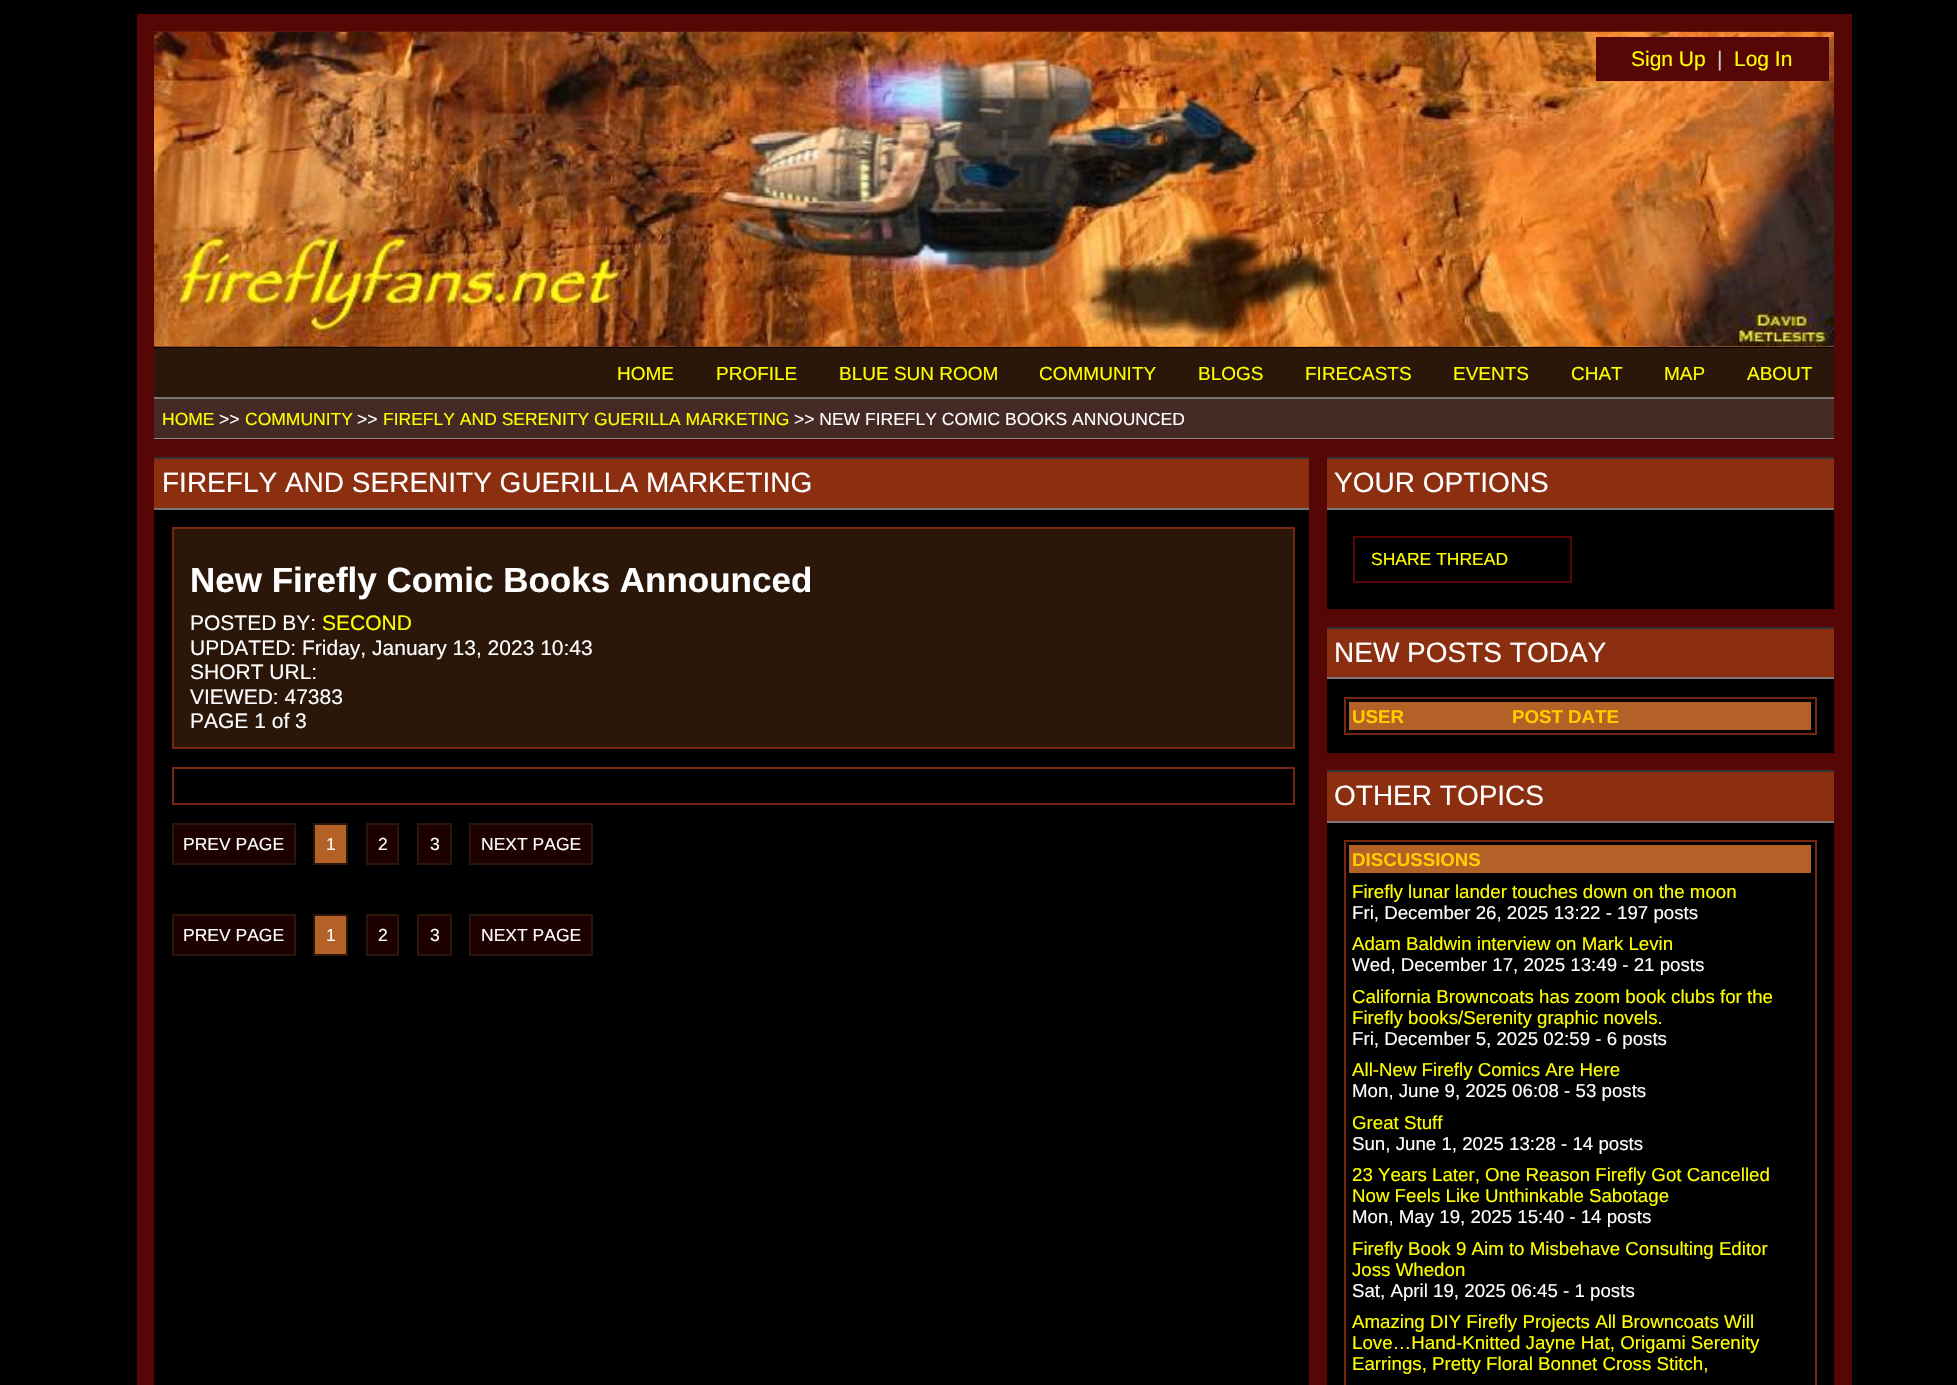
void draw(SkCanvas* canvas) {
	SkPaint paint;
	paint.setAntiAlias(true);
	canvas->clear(0xff000000);
	paint.setStroke(true);
	paint.setStrokeWidth(18);
	paint.setColor(0xff560605);
	canvas->drawRect(SkRect::MakeXYWH(146, 23, 1697, 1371), paint);
	canvas->drawImageRect(SkImages::DeferredFromEncodedData(SkData::MakeFromFileName("img1.png")), SkRect::MakeXYWH(154, 31, 1680, 316), SkSamplingOptions());
	paint.setStroke(false);
	paint.setColor(0xff000000);
	canvas->drawRect(SkRect::MakeXYWH(154, 347, 1, 1), paint);
	paint.setColor(0xff560605);
	canvas->drawRect(SkRect::MakeXYWH(1596, 37, 233, 44), paint);
	SkFont f1(fontMgr->matchFamilyStyle("Liberation Sans", SkFontStyle::Normal()), 21);
	f1.setSubpixel(true);
	paint.setColor(0xffffff00);
	canvas->drawString("Sign Up", 1631, 66, f1, paint);
	paint.setColor(0xffcccccc);
	canvas->drawString("|", 1717, 66, f1, paint);
	paint.setColor(0xffffff00);
	canvas->drawString("Log In", 1734, 66, f1, paint);
	paint.setColor(0xff2a1709);
	canvas->drawRect(SkRect::MakeXYWH(154, 348, 1680, 49), paint);
	paint.setColor(0xff777777);
	canvas->drawRect(SkRect::MakeXYWH(154, 397, 1680, 2), paint);
	SkFont f2(fontMgr->matchFamilyStyle("Liberation Sans", SkFontStyle::Normal()), 19);
	f2.setSubpixel(true);
	paint.setColor(0xffffff00);
	canvas->drawString("HOME", 617, 380, f2, paint);
	canvas->drawString("PROFILE", 716, 380, f2, paint);
	canvas->drawString("BLUE SUN ROOM", 839, 380, f2, paint);
	canvas->drawString("COMMUNITY", 1039, 380, f2, paint);
	canvas->drawString("BLOGS", 1198, 380, f2, paint);
	canvas->drawString("FIRECASTS", 1305, 380, f2, paint);
	canvas->drawString("EVENTS", 1453, 380, f2, paint);
	canvas->drawString("CHAT", 1571, 380, f2, paint);
	canvas->drawString("MAP", 1664, 380, f2, paint);
	canvas->drawString("ABOUT", 1747, 380, f2, paint);
	paint.setColor(0xff452925);
	canvas->drawRect(SkRect::MakeXYWH(154, 399, 1680, 39), paint);
	paint.setColor(0xff888888);
	canvas->drawRect(SkRect::MakeXYWH(154, 438, 1680, 1), paint);
	SkFont f3(fontMgr->matchFamilyStyle("Liberation Sans", SkFontStyle::Normal()), 17.5);
	f3.setSubpixel(true);
	paint.setColor(0xffffff00);
	canvas->drawString("HOME", 162, 425, f3, paint);
	paint.setColor(0xffffffff);
	canvas->drawString(">>", 219, 425, f3, paint);
	paint.setColor(0xffffff00);
	canvas->drawString("COMMUNITY", 245, 425, f3, paint);
	paint.setColor(0xffffffff);
	canvas->drawString(">>", 357, 425, f3, paint);
	paint.setColor(0xffffff00);
	canvas->drawString("FIREFLY AND SERENITY GUERILLA MARKETING", 383, 425, f3, paint);
	paint.setColor(0xffffffff);
	canvas->drawString(">> NEW FIREFLY COMIC BOOKS ANNOUNCED", 794, 425, f3, paint);
	paint.setColor(0xff000000);
	canvas->drawRect(SkRect::MakeXYWH(154, 510, 1, 875), paint);
	paint.setColor(0xff560605);
	canvas->drawRect(SkRect::MakeXYWH(155, 439, 1679, 18), paint);
	canvas->drawRect(SkRect::MakeXYWH(1309, 457, 18, 928), paint);
	paint.setColor(0xff8c2f10);
	canvas->drawRect(SkRect::MakeXYWH(154, 459, 1155, 49), paint);
	paint.setColor(0xff333333);
	canvas->drawRect(SkRect::MakeXYWH(154, 457, 1155, 2), paint);
	paint.setColor(0xff777777);
	canvas->drawRect(SkRect::MakeXYWH(154, 508, 1155, 2), paint);
	SkFont f4(fontMgr->matchFamilyStyle("Liberation Sans", SkFontStyle::Normal()), 28);
	f4.setSubpixel(true);
	paint.setColor(0xffffffff);
	canvas->drawString("FIREFLY AND SERENITY GUERILLA MARKETING", 162, 492, f4, paint);
	paint.setColor(0xff2a170a);
	canvas->drawRect(SkRect::MakeXYWH(173, 528, 1121, 220), paint);
	paint.setStroke(true);
	paint.setStrokeWidth(2);
	paint.setColor(0xff772710);
	canvas->drawRect(SkRect::MakeXYWH(173, 528, 1121, 220), paint);
	SkFont f5(fontMgr->matchFamilyStyle("Liberation Sans", SkFontStyle::Bold()), 35);
	f5.setSubpixel(true);
	paint.setStroke(false);
	paint.setColor(0xffffffff);
	canvas->drawString("New Firefly Comic Books Announced", 190, 592, f5, paint);
	canvas->drawString("POSTED BY:", 190, 630, f1, paint);
	paint.setColor(0xffffff00);
	canvas->drawString("SECOND", 322, 630, f1, paint);
	paint.setColor(0xffffffff);
	canvas->drawString("UPDATED: Friday, January 13, 2023 10:43", 190, 655, f1, paint);
	canvas->drawString("SHORT URL:", 190, 679, f1, paint);
	canvas->drawString("VIEWED: 47383", 190, 704, f1, paint);
	canvas->drawString("PAGE 1 of 3", 190, 728, f1, paint);
	paint.setStroke(true);
	paint.setColor(0xff772710);
	canvas->drawRect(SkRect::MakeXYWH(173, 768, 1121, 36), paint);
	paint.setStroke(false);
	paint.setColor(0xff1c0100);
	canvas->drawRect(SkRect::MakeXYWH(173, 824, 122, 40), paint);
	paint.setStroke(true);
	paint.setColor(0xff2a1709);
	canvas->drawRect(SkRect::MakeXYWH(173, 824, 122, 40), paint);
	paint.setStroke(false);
	paint.setColor(0xffffffff);
	canvas->drawString("PREV PAGE", 183, 850, f3, paint);
	paint.setColor(0xffb36127);
	canvas->drawRect(SkRect::MakeXYWH(314, 824, 33, 40), paint);
	paint.setStroke(true);
	paint.setColor(0xff2a1709);
	canvas->drawRect(SkRect::MakeXYWH(314, 824, 33, 40), paint);
	paint.setStroke(false);
	paint.setColor(0xffffffff);
	canvas->drawString("1", 326, 850, f3, paint);
	paint.setColor(0xff1c0100);
	canvas->drawRect(SkRect::MakeXYWH(367, 824, 31, 40), paint);
	paint.setStroke(true);
	paint.setColor(0xff2a1709);
	canvas->drawRect(SkRect::MakeXYWH(367, 824, 31, 40), paint);
	paint.setStroke(false);
	paint.setColor(0xffffffff);
	canvas->drawString("2", 378, 850, f3, paint);
	paint.setColor(0xff1c0100);
	canvas->drawRect(SkRect::MakeXYWH(418, 824, 33, 40), paint);
	paint.setStroke(true);
	paint.setColor(0xff2a1709);
	canvas->drawRect(SkRect::MakeXYWH(418, 824, 33, 40), paint);
	paint.setStroke(false);
	paint.setColor(0xffffffff);
	canvas->drawString("3", 430, 850, f3, paint);
	paint.setColor(0xff1c0100);
	canvas->drawRect(SkRect::MakeXYWH(470, 824, 122, 40), paint);
	paint.setStroke(true);
	paint.setColor(0xff2a1709);
	canvas->drawRect(SkRect::MakeXYWH(470, 824, 122, 40), paint);
	paint.setStroke(false);
	paint.setColor(0xffffffff);
	canvas->drawString("NEXT PAGE", 481, 850, f3, paint);
	paint.setColor(0xff1c0100);
	canvas->drawRect(SkRect::MakeXYWH(173, 915, 122, 40), paint);
	paint.setStroke(true);
	paint.setColor(0xff2a1709);
	canvas->drawRect(SkRect::MakeXYWH(173, 915, 122, 40), paint);
	paint.setStroke(false);
	paint.setColor(0xffffffff);
	canvas->drawString("PREV PAGE", 183, 941, f3, paint);
	paint.setColor(0xffb36127);
	canvas->drawRect(SkRect::MakeXYWH(314, 915, 33, 40), paint);
	paint.setStroke(true);
	paint.setColor(0xff2a1709);
	canvas->drawRect(SkRect::MakeXYWH(314, 915, 33, 40), paint);
	paint.setStroke(false);
	paint.setColor(0xffffffff);
	canvas->drawString("1", 326, 941, f3, paint);
	paint.setColor(0xff1c0100);
	canvas->drawRect(SkRect::MakeXYWH(367, 915, 31, 40), paint);
	paint.setStroke(true);
	paint.setColor(0xff2a1709);
	canvas->drawRect(SkRect::MakeXYWH(367, 915, 31, 40), paint);
	paint.setStroke(false);
	paint.setColor(0xffffffff);
	canvas->drawString("2", 378, 941, f3, paint);
	paint.setColor(0xff1c0100);
	canvas->drawRect(SkRect::MakeXYWH(418, 915, 33, 40), paint);
	paint.setStroke(true);
	paint.setColor(0xff2a1709);
	canvas->drawRect(SkRect::MakeXYWH(418, 915, 33, 40), paint);
	paint.setStroke(false);
	paint.setColor(0xffffffff);
	canvas->drawString("3", 430, 941, f3, paint);
	paint.setColor(0xff1c0100);
	canvas->drawRect(SkRect::MakeXYWH(470, 915, 122, 40), paint);
	paint.setStroke(true);
	paint.setColor(0xff2a1709);
	canvas->drawRect(SkRect::MakeXYWH(470, 915, 122, 40), paint);
	paint.setStroke(false);
	paint.setColor(0xffffffff);
	canvas->drawString("NEXT PAGE", 481, 941, f3, paint);
	paint.setColor(0xff560605);
	canvas->drawRect(SkRect::MakeXYWH(1327, 609, 507, 18), paint);
	paint.setColor(0xff8c2f10);
	canvas->drawRect(SkRect::MakeXYWH(1327, 459, 507, 49), paint);
	paint.setColor(0xff333333);
	canvas->drawRect(SkRect::MakeXYWH(1327, 457, 507, 2), paint);
	paint.setColor(0xff777777);
	canvas->drawRect(SkRect::MakeXYWH(1327, 508, 507, 2), paint);
	paint.setColor(0xffffffff);
	canvas->drawString("YOUR OPTIONS", 1334, 492, f4, paint);
	paint.setStroke(true);
	paint.setColor(0xff560605);
	canvas->drawRect(SkRect::MakeXYWH(1354, 537, 217, 45), paint);
	paint.setStroke(false);
	paint.setColor(0xffffff00);
	canvas->drawString("SHARE THREAD", 1371, 565, f3, paint);
	paint.setColor(0xff560605);
	canvas->drawRect(SkRect::MakeXYWH(1327, 753, 507, 17), paint);
	paint.setColor(0xff8c2f10);
	canvas->drawRect(SkRect::MakeXYWH(1327, 629, 507, 48), paint);
	paint.setColor(0xff333333);
	canvas->drawRect(SkRect::MakeXYWH(1327, 627, 507, 2), paint);
	paint.setColor(0xff777777);
	canvas->drawRect(SkRect::MakeXYWH(1327, 677, 507, 2), paint);
	paint.setColor(0xffffffff);
	canvas->drawString("NEW POSTS TODAY", 1334, 662, f4, paint);
	paint.setStroke(true);
	paint.setColor(0xff772710);
	canvas->drawRect(SkRect::MakeXYWH(1345, 698, 471, 36), paint);
	paint.setStroke(false);
	paint.setColor(0xffb36127);
	canvas->drawRect(SkRect::MakeXYWH(1349, 702, 462, 28), paint);
	SkFont f6(fontMgr->matchFamilyStyle("Liberation Sans", SkFontStyle::Bold()), 18.7);
	f6.setSubpixel(true);
	paint.setColor(0xffffcc00);
	canvas->drawString("USER", 1352, 723, f6, paint);
	canvas->drawString("POST DATE", 1512, 723, f6, paint);
	paint.setColor(0xff8c2f10);
	canvas->drawRect(SkRect::MakeXYWH(1327, 772, 507, 49), paint);
	paint.setColor(0xff333333);
	canvas->drawRect(SkRect::MakeXYWH(1327, 770, 507, 2), paint);
	paint.setColor(0xff777777);
	canvas->drawRect(SkRect::MakeXYWH(1327, 821, 507, 2), paint);
	paint.setColor(0xffffffff);
	canvas->drawString("OTHER TOPICS", 1334, 805, f4, paint);
	paint.setStroke(true);
	paint.setColor(0xff772710);
	canvas->drawRect(SkRect::MakeXYWH(1345, 841, 471, 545), paint);
	paint.setStroke(false);
	paint.setColor(0xffb36127);
	canvas->drawRect(SkRect::MakeXYWH(1349, 845, 462, 28), paint);
	paint.setColor(0xffffcc00);
	canvas->drawString("DISCUSSIONS", 1352, 866, f6, paint);
	SkFont f7(fontMgr->matchFamilyStyle("Liberation Sans", SkFontStyle::Normal()), 18.7);
	f7.setSubpixel(true);
	paint.setColor(0xffffff00);
	canvas->drawString("Firefly lunar lander touches down on the moon", 1352, 898, f7, paint);
	paint.setColor(0xffffffff);
	canvas->drawString("Fri, December 26, 2025 13:22 - 197 posts", 1352, 919, f7, paint);
	paint.setColor(0xffffff00);
	canvas->drawString("Adam Baldwin interview on Mark Levin", 1352, 950, f7, paint);
	paint.setColor(0xffffffff);
	canvas->drawString("Wed, December 17, 2025 13:49 - 21 posts", 1352, 971, f7, paint);
	paint.setColor(0xffffff00);
	canvas->drawString("California Browncoats has zoom book clubs for the", 1352, 1003, f7, paint);
	canvas->drawString("Firefly books/Serenity graphic novels.", 1352, 1024, f7, paint);
	paint.setColor(0xffffffff);
	canvas->drawString("Fri, December 5, 2025 02:59 - 6 posts", 1352, 1045, f7, paint);
	paint.setColor(0xffffff00);
	canvas->drawString("All-New Firefly Comics Are Here", 1352, 1076, f7, paint);
	paint.setColor(0xffffffff);
	canvas->drawString("Mon, June 9, 2025 06:08 - 53 posts", 1352, 1097, f7, paint);
	paint.setColor(0xffffff00);
	canvas->drawString("Great Stuff", 1352, 1129, f7, paint);
	paint.setColor(0xffffffff);
	canvas->drawString("Sun, June 1, 2025 13:28 - 14 posts", 1352, 1150, f7, paint);
	paint.setColor(0xffffff00);
	canvas->drawString("23 Years Later, One Reason Firefly Got Cancelled", 1352, 1181, f7, paint);
	canvas->drawString("Now Feels Like Unthinkable Sabotage", 1352, 1202, f7, paint);
	paint.setColor(0xffffffff);
	canvas->drawString("Mon, May 19, 2025 15:40 - 14 posts", 1352, 1223, f7, paint);
	paint.setColor(0xffffff00);
	canvas->drawString("Firefly Book 9 Aim to Misbehave Consulting Editor", 1352, 1255, f7, paint);
	canvas->drawString("Joss Whedon", 1352, 1276, f7, paint);
	paint.setColor(0xffffffff);
	canvas->drawString("Sat, April 19, 2025 06:45 - 1 posts", 1352, 1297, f7, paint);
	paint.setColor(0xffffff00);
	canvas->drawString("Amazing DIY Firefly Projects All Browncoats Will", 1352, 1328, f7, paint);
	canvas->drawString("Love…Hand-Knitted Jayne Hat, Origami Serenity", 1352, 1349, f7, paint);
	canvas->drawString("Earrings, Pretty Floral Bonnet Cross Stitch,", 1352, 1370, f7, paint);
}
